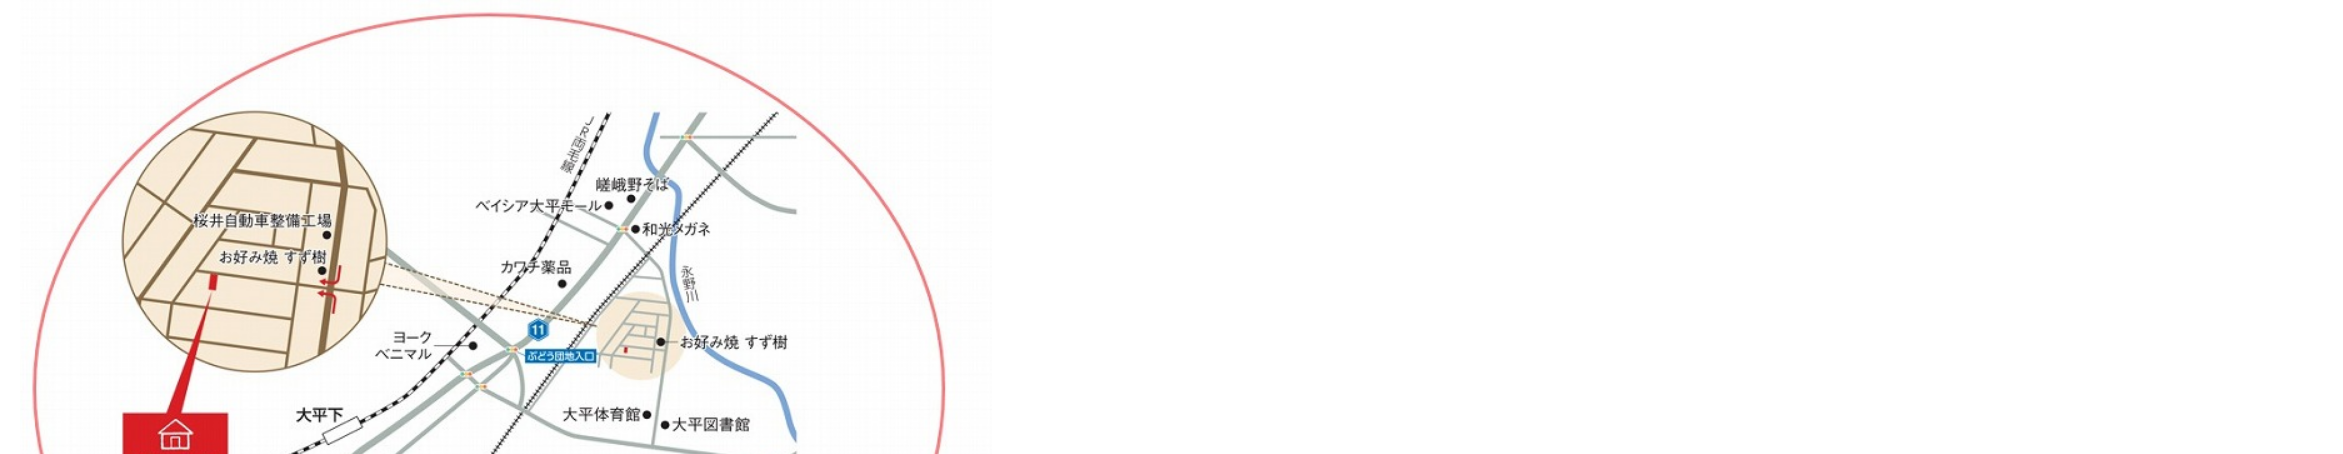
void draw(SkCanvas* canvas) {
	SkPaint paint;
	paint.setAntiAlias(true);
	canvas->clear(0xffffffff);
	canvas->drawImageRect(SkImages::DeferredFromEncodedData(SkData::MakeFromFileName("img1.png")), SkRect::MakeXYWH(20, 0, 972, 454), SkSamplingOptions());
}
